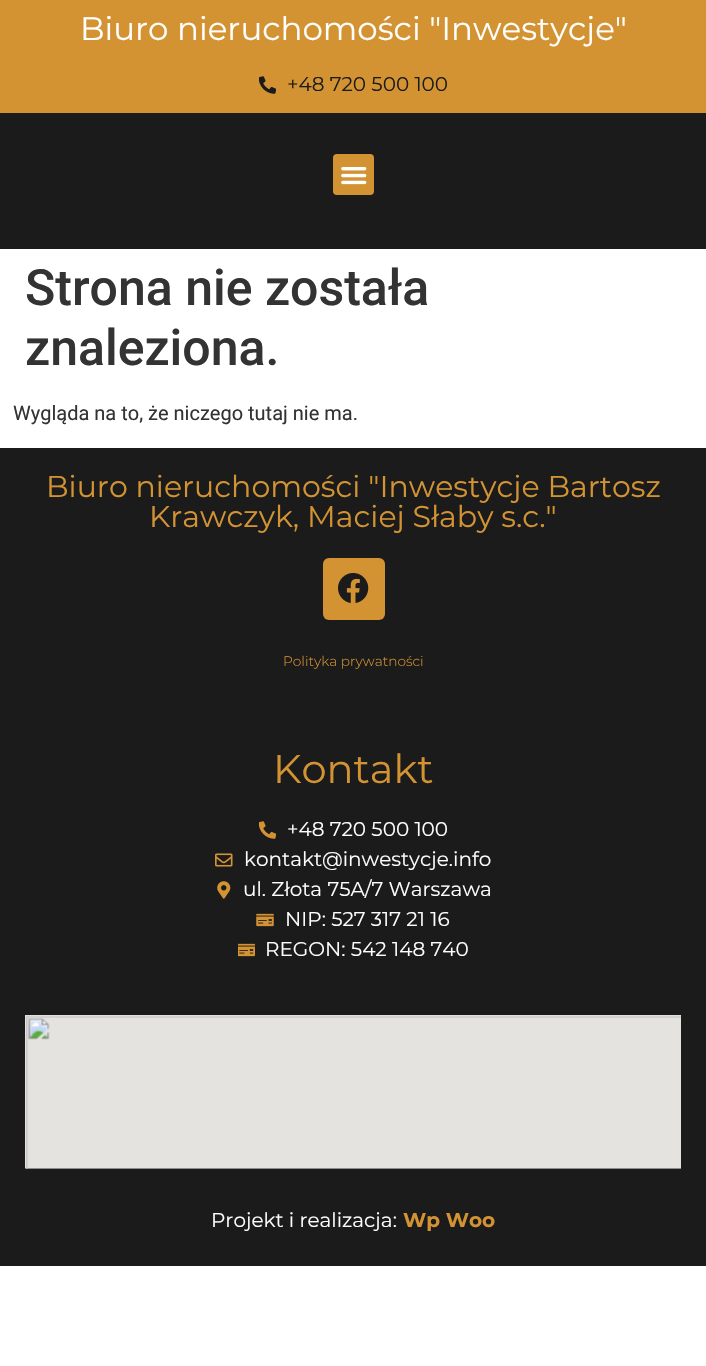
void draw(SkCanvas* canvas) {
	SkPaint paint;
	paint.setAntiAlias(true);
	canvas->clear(0xffffffff);
	paint.setColor(0xffd39332);
	canvas->drawRect(SkRect::MakeXYWH(0, 0, 706, 113), paint);
	SkFont f1(fontMgr->matchFamilyStyle("Montserrat", SkFontStyle::Normal()), 32.5);
	f1.setSubpixel(true);
	paint.setColor(0xffffffff);
	canvas->drawString("Biuro nieruchomości \"Inwestycje\"", 80, 40, f1, paint);
	canvas->drawImageRect(SkImages::DeferredFromEncodedData(SkData::MakeFromFileName("img1.png")), SkRect::MakeXYWH(259, 76, 17, 18), SkSamplingOptions());
	SkFont f2(fontMgr->matchFamilyStyle("Montserrat", SkFontStyle::Normal()), 20);
	f2.setSubpixel(true);
	paint.setColor(0xff1b1b1b);
	canvas->drawString("+48 720 500 100", 287, 91, f2, paint);
	canvas->drawRect(SkRect::MakeXYWH(0, 113, 706, 136), paint);
	paint.setColor(0xffd39332);
	canvas->drawRoundRect(SkRect::MakeXYWH(333, 154, 41, 41), 4, 4, paint);
	canvas->drawImageRect(SkImages::DeferredFromEncodedData(SkData::MakeFromFileName("img2.png")), SkRect::MakeXYWH(341, 167, 26, 18), SkSamplingOptions());
	SkFont f3(fontMgr->matchFamilyStyle("Roboto", SkFontStyle(500, SkFontStyle::kNormal_Width, SkFontStyle::kUpright_Slant)), 50);
	f3.setSubpixel(true);
	paint.setColor(0xff333333);
	canvas->drawString("Strona nie została", 25, 305, f3, paint);
	canvas->drawString("znaleziona.", 25, 365, f3, paint);
	SkFont f4(fontMgr->matchFamilyStyle("Roboto", SkFontStyle::Normal()), 20);
	f4.setSubpixel(true);
	canvas->drawString("Wygląda na to, że niczego tutaj nie ma.", 13, 420, f4, paint);
	paint.setColor(0xff1b1b1b);
	canvas->drawRect(SkRect::MakeXYWH(0, 448, 706, 818), paint);
	SkFont f5(fontMgr->matchFamilyStyle("Montserrat", SkFontStyle::Normal()), 30);
	f5.setSubpixel(true);
	paint.setColor(0xffd39332);
	canvas->drawString("Biuro nieruchomości \"Inwestycje Bartosz", 46, 497, f5, paint);
	canvas->drawString("Krawczyk, Maciej Słaby s.c.\"", 149, 527, f5, paint);
	canvas->drawRoundRect(SkRect::MakeXYWH(323, 558, 62, 62), 6, 6, paint);
	canvas->drawImageRect(SkImages::DeferredFromEncodedData(SkData::MakeFromFileName("img3.png")), SkRect::MakeXYWH(338, 573, 31, 30), SkSamplingOptions());
	SkFont f6(fontMgr->matchFamilyStyle("Montserrat", SkFontStyle(300, SkFontStyle::kNormal_Width, SkFontStyle::kUpright_Slant)), 13.75);
	f6.setSubpixel(true);
	canvas->drawString("Polityka prywatności", 283, 666, f6, paint);
	SkFont f7(fontMgr->matchFamilyStyle("Montserrat", SkFontStyle::Normal()), 40);
	f7.setSubpixel(true);
	canvas->drawString("Kontakt", 273, 783, f7, paint);
	canvas->drawImageRect(SkImages::DeferredFromEncodedData(SkData::MakeFromFileName("img4.png")), SkRect::MakeXYWH(259, 821, 17, 18), SkSamplingOptions());
	paint.setColor(0xffffffff);
	canvas->drawString("+48 720 500 100", 287, 836, f2, paint);
	canvas->drawImageRect(SkImages::DeferredFromEncodedData(SkData::MakeFromFileName("img5.png")), SkRect::MakeXYWH(215, 853, 18, 14), SkSamplingOptions());
	canvas->drawString("kontakt@inwestycje.info", 244, 866, f2, paint);
	canvas->drawImageRect(SkImages::DeferredFromEncodedData(SkData::MakeFromFileName("img6.png")), SkRect::MakeXYWH(217, 881, 14, 18), SkSamplingOptions());
	canvas->drawString("ul. Złota 75A/7 Warszawa", 243, 896, f2, paint);
	canvas->drawImageRect(SkImages::DeferredFromEncodedData(SkData::MakeFromFileName("img7.png")), SkRect::MakeXYWH(256, 913, 18, 14), SkSamplingOptions());
	canvas->drawString("NIP: 527 317 21 16", 285, 926, f2, paint);
	canvas->drawImageRect(SkImages::DeferredFromEncodedData(SkData::MakeFromFileName("img8.png")), SkRect::MakeXYWH(238, 943, 17, 14), SkSamplingOptions());
	canvas->drawString("REGON: 542 148 740", 265, 956, f2, paint);
	canvas->drawImageRect(SkImages::DeferredFromEncodedData(SkData::MakeFromFileName("img9.png")), SkRect::MakeXYWH(25, 1015, 656, 154), SkSamplingOptions());
	canvas->drawString("Projekt i realizacja:", 211, 1227, f2, paint);
	SkFont f8(fontMgr->matchFamilyStyle("Montserrat", SkFontStyle::Bold()), 20);
	f8.setSubpixel(true);
	paint.setColor(0xffd39332);
	canvas->drawString("Wp Woo", 403, 1227, f8, paint);
}
